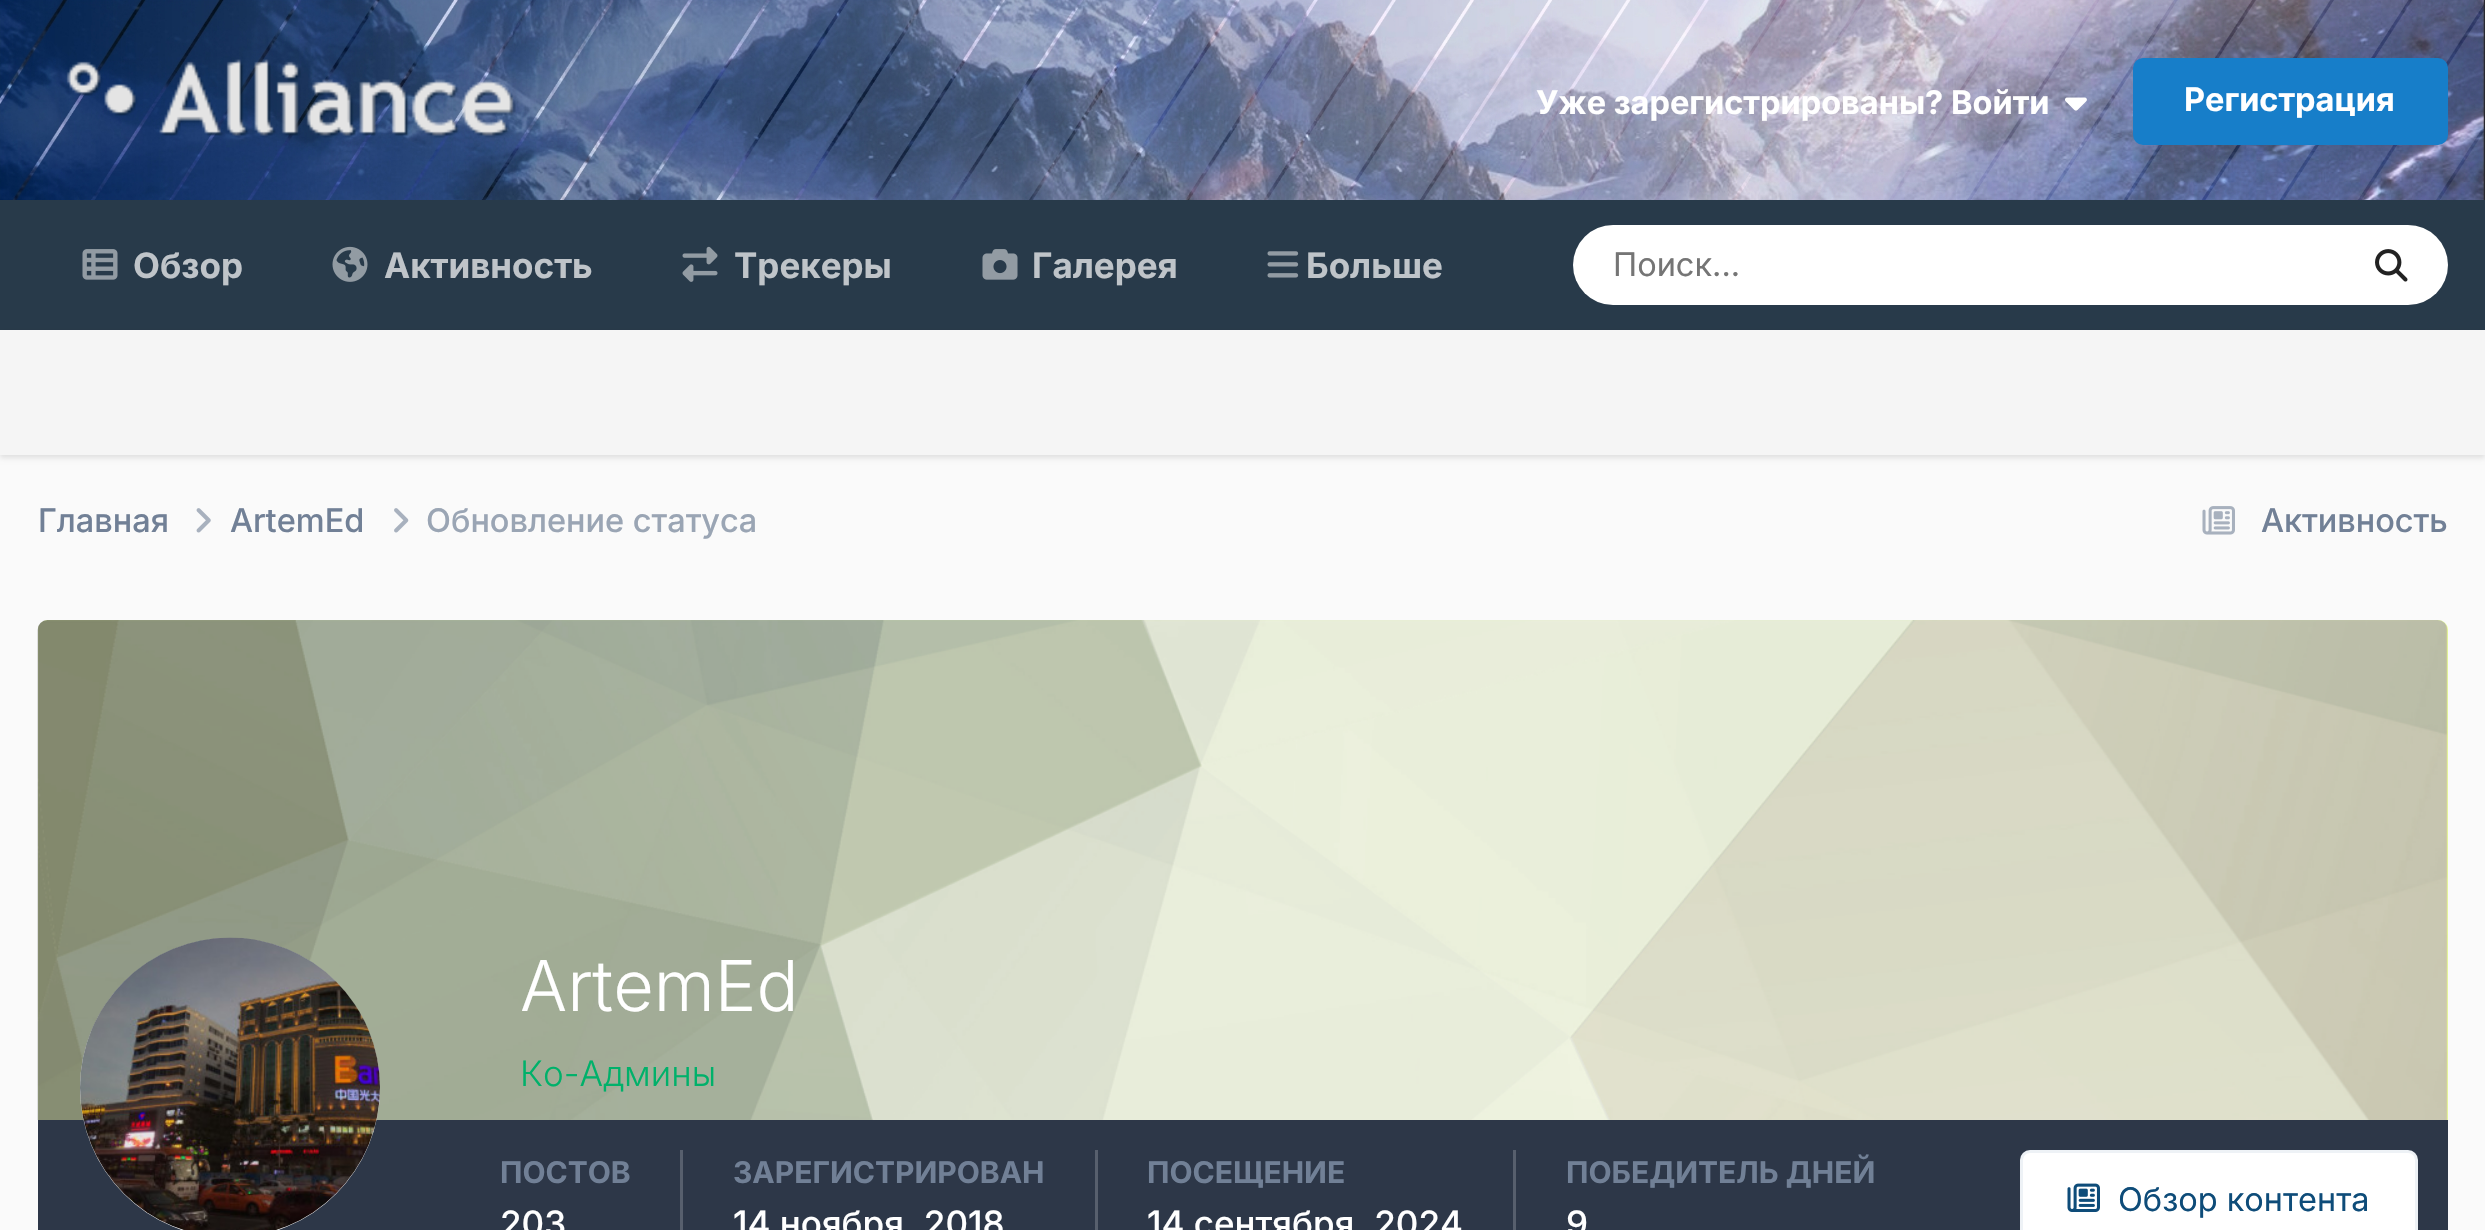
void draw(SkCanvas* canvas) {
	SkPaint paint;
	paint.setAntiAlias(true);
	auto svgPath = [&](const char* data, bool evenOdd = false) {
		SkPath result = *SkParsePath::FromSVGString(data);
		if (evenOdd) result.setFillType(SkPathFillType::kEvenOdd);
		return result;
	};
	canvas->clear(0xfffafafa);
	canvas->drawImageRect(SkImages::DeferredFromEncodedData(SkData::MakeFromFileName("img1.png")), SkRect::MakeXYWH(0, 0, 2485, 200), SkSamplingOptions());
	canvas->drawImageRect(SkImages::DeferredFromEncodedData(SkData::MakeFromFileName("img2.png")), SkRect::MakeXYWH(66, 59, 450, 79), SkSamplingOptions());
	SkFont f1(fontMgr->matchFamilyStyle("Inter", SkFontStyle::Bold()), 32.5);
	f1.setSubpixel(true);
	paint.setColor(0xffffffff);
	canvas->drawString("Уже зарегистрированы? Войти", 1536, 114, f1, paint);
	canvas->drawImageRect(SkImages::DeferredFromEncodedData(SkData::MakeFromFileName("img3.png")), SkRect::MakeXYWH(2065, 97, 22, 14), SkSamplingOptions());
	paint.setColor(0xff177ec9);
	canvas->drawRoundRect(SkRect::MakeXYWH(2133, 58, 315, 87), 10, 10, paint);
	paint.setColor(0xffffffff);
	canvas->drawString("Регистрация", 2184, 111, f1, paint);
	paint.setColor(0xff283a4a);
	canvas->drawRect(SkRect::MakeXYWH(0, 200, 2485, 130), paint);
	canvas->drawImageRect(SkImages::DeferredFromEncodedData(SkData::MakeFromFileName("img4.png")), SkRect::MakeXYWH(82, 249, 36, 31), SkSamplingOptions());
	SkFont f2(fontMgr->matchFamilyStyle("Inter", SkFontStyle::Bold()), 35);
	f2.setSubpixel(true);
	paint.setColor(0xffbfc4c9);
	canvas->drawString("Обзор", 133, 278, f2, paint);
	canvas->drawImageRect(SkImages::DeferredFromEncodedData(SkData::MakeFromFileName("img5.png")), SkRect::MakeXYWH(332, 246, 36, 36), SkSamplingOptions());
	canvas->drawString("Активность", 384, 278, f2, paint);
	canvas->drawImageRect(SkImages::DeferredFromEncodedData(SkData::MakeFromFileName("img6.png")), SkRect::MakeXYWH(682, 246, 36, 36), SkSamplingOptions());
	canvas->drawString("Трекеры", 734, 278, f2, paint);
	canvas->drawImageRect(SkImages::DeferredFromEncodedData(SkData::MakeFromFileName("img7.png")), SkRect::MakeXYWH(982, 249, 36, 31), SkSamplingOptions());
	canvas->drawString("Галерея", 1032, 278, f2, paint);
	canvas->drawImageRect(SkImages::DeferredFromEncodedData(SkData::MakeFromFileName("img8.png")), SkRect::MakeXYWH(1267, 251, 32, 27), SkSamplingOptions());
	canvas->drawString("Больше", 1306, 278, f2, paint);
	paint.setColor(0xffffffff);
	canvas->drawRoundRect(SkRect::MakeXYWH(1573, 225, 875, 80), 40, 40, paint);
	SkFont f3(fontMgr->matchFamilyStyle("Inter", SkFontStyle::Normal()), 32.5);
	f3.setSubpixel(true);
	paint.setColor(0xff757575);
	canvas->drawString("Поиск...", 1613, 276, f3, paint);
	canvas->drawImageRect(SkImages::DeferredFromEncodedData(SkData::MakeFromFileName("img9.png")), SkRect::MakeXYWH(2375, 249, 33, 33), SkSamplingOptions());
	paint.setColor(0x1a000000);
	paint.setMaskFilter(SkMaskFilter::MakeBlur(kNormal_SkBlurStyle, 2.5));
	canvas->drawRect(SkRect::MakeXYWH(0, 333, 2485, 125), paint);
	paint.setMaskFilter(nullptr);
	paint.setColor(0xfff5f5f5);
	canvas->drawRect(SkRect::MakeXYWH(0, 330, 2485, 125), paint);
	SkFont f4(fontMgr->matchFamilyStyle("Inter", SkFontStyle(500, SkFontStyle::kNormal_Width, SkFontStyle::kUpright_Slant)), 32.5);
	f4.setSubpixel(true);
	paint.setColor(0xff718096);
	canvas->drawString("Главная", 38, 532, f4, paint);
	canvas->drawImageRect(SkImages::DeferredFromEncodedData(SkData::MakeFromFileName("img10.png")), SkRect::MakeXYWH(196, 508, 15, 25), SkSamplingOptions());
	canvas->drawString("ArtemEd", 230, 532, f4, paint);
	canvas->drawImageRect(SkImages::DeferredFromEncodedData(SkData::MakeFromFileName("img11.png")), SkRect::MakeXYWH(394, 508, 15, 25), SkSamplingOptions());
	paint.setColor(0xff9aa5b4);
	canvas->drawString("Обновление статуса", 426, 532, f4, paint);
	canvas->drawImageRect(SkImages::DeferredFromEncodedData(SkData::MakeFromFileName("img12.png")), SkRect::MakeXYWH(2202, 506, 33, 29), SkSamplingOptions());
	paint.setColor(0xff718096);
	canvas->drawString("Активность", 2261, 532, f4, paint);
	paint.setColor(0xffe7ff99);
	canvas->drawPath(svgPath("M48 620H2438C2443.5 620 2448 624.5 2448 630V1120H38V630C38 624.5 42.5 620 48 620Z"), paint);
	canvas->drawImageRect(SkImages::DeferredFromEncodedData(SkData::MakeFromFileName("img13.png")), SkRect::MakeXYWH(37, 620, 2411, 500), SkSamplingOptions());
	paint.setColor(0xff2d3748);
	canvas->drawRect(SkRect::MakeXYWH(38, 1120, 2410, 110), paint);
	paint.setColor(0xffffffff);
	canvas->drawCircle(230, 1088, 150, paint);
	canvas->drawImageRect(SkImages::DeferredFromEncodedData(SkData::MakeFromFileName("img14.png")), SkRect::MakeXYWH(80, 937, 300, 293), SkSamplingOptions());
	SkFont f5(fontMgr->matchFamilyStyle("Inter", SkFontStyle(300, SkFontStyle::kNormal_Width, SkFontStyle::kUpright_Slant)), 70);
	f5.setSubpixel(true);
	canvas->drawString("ArtemEd", 520, 1011, f5, paint);
	SkFont f6(fontMgr->matchFamilyStyle("Inter", SkFontStyle(300, SkFontStyle::kNormal_Width, SkFontStyle::kUpright_Slant)), 35);
	f6.setSubpixel(true);
	paint.setColor(0xff00b16a);
	canvas->drawString("Ко-Админы", 520, 1086, f6, paint);
	paint.setColor(0xff575f6d);
	canvas->drawRect(SkRect::MakeXYWH(680, 1150, 3, 80), paint);
	SkFont f7(fontMgr->matchFamilyStyle("Inter", SkFontStyle::Bold()), 30);
	f7.setSubpixel(true);
	paint.setColor(0xff718096);
	canvas->drawString("ПОСТОВ", 500, 1183, f7, paint);
	SkFont f8(fontMgr->matchFamilyStyle("Inter", SkFontStyle(500, SkFontStyle::kNormal_Width, SkFontStyle::kUpright_Slant)), 35);
	f8.setSubpixel(true);
	paint.setColor(0xffffffff);
	canvas->drawString("203", 500, 1236, f8, paint);
	paint.setColor(0xff575f6d);
	canvas->drawRect(SkRect::MakeXYWH(1095, 1150, 3, 80), paint);
	paint.setColor(0xff718096);
	canvas->drawString("ЗАРЕГИСТРИРОВАН", 733, 1183, f7, paint);
	paint.setColor(0xffffffff);
	canvas->drawString("14 ноября, 2018", 733, 1236, f8, paint);
	paint.setColor(0xff575f6d);
	canvas->drawRect(SkRect::MakeXYWH(1513, 1150, 3, 80), paint);
	paint.setColor(0xff718096);
	canvas->drawString("ПОСЕЩЕНИЕ", 1147, 1183, f7, paint);
	paint.setColor(0xffffffff);
	canvas->drawString("14 сентября, 2024", 1147, 1236, f8, paint);
	paint.setColor(0xff718096);
	canvas->drawString("ПОБЕДИТЕЛЬ ДНЕЙ", 1566, 1183, f7, paint);
	paint.setColor(0xffffffff);
	canvas->drawString("9", 1566, 1236, f8, paint);
	canvas->drawRoundRect(SkRect::MakeXYWH(2020, 1150, 398, 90), 10, 10, paint);
	paint.setStroke(true);
	paint.setStrokeWidth(3);
	paint.setColor(0x120e4c79);
	canvas->drawRoundRect(SkRect::MakeXYWH(2021.5, 1151.5, 395, 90), 8.5, 8.5, paint);
	canvas->drawImageRect(SkImages::DeferredFromEncodedData(SkData::MakeFromFileName("img15.png")), SkRect::MakeXYWH(2067, 1183, 33, 29), SkSamplingOptions());
	paint.setStroke(false);
	paint.setColor(0xff0e4c79);
	canvas->drawString("Обзор контента", 2118, 1211, f3, paint);
}
